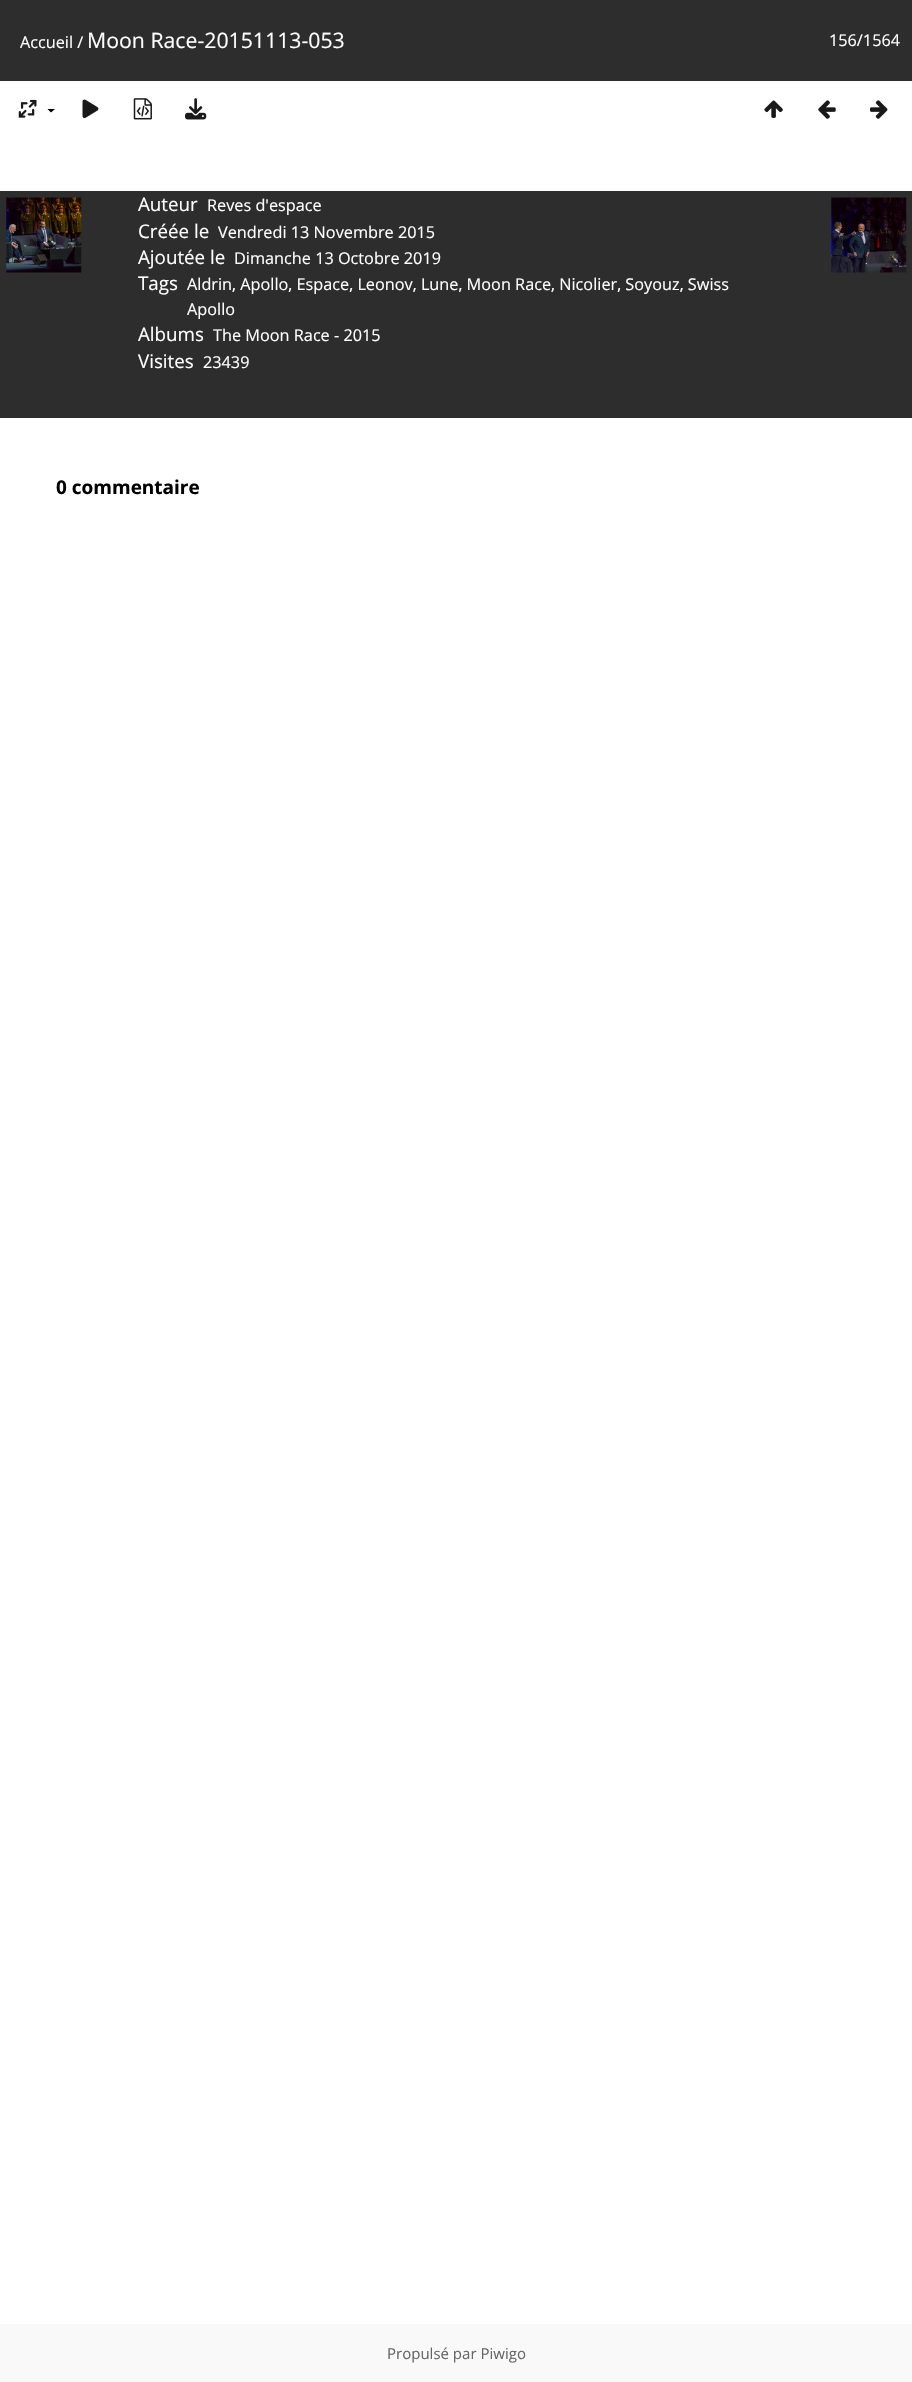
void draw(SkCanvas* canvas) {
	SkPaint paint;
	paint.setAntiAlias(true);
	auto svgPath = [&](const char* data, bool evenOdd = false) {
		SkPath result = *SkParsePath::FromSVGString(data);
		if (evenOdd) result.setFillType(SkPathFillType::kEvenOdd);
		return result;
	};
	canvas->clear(0xffffffff);
	paint.setColor(0xff2d2d2d);
	canvas->drawRect(SkRect::MakeXYWH(0, 0, 912, 81), paint);
	SkFont f1(fontMgr->matchFamilyStyle("Open Sans", SkFontStyle::Normal()), 16.25);
	f1.setSubpixel(true);
	paint.setColor(0xffffffff);
	canvas->drawString("Accueil /", 20, 48, f1, paint);
	SkFont f2(fontMgr->matchFamilyStyle("Open Sans", SkFontStyle::Normal()), 21.25);
	f2.setSubpixel(true);
	canvas->drawString("Moon Race-20151113-053", 87, 48, f2, paint);
	canvas->drawString("156/1564", 829, 46, f1, paint);
	canvas->drawImageRect(SkImages::DeferredFromEncodedData(SkData::MakeFromFileName("img1.png")), SkRect::MakeXYWH(18, 99, 19, 19), SkSamplingOptions());
	paint.setColor(0xff000000);
	canvas->drawPath(svgPath("M47.5 109H55L51 112.5Z"), paint);
	canvas->drawImageRect(SkImages::DeferredFromEncodedData(SkData::MakeFromFileName("img2.png")), SkRect::MakeXYWH(82, 99, 17, 20), SkSamplingOptions());
	canvas->drawImageRect(SkImages::DeferredFromEncodedData(SkData::MakeFromFileName("img3.png")), SkRect::MakeXYWH(133, 98, 19, 22), SkSamplingOptions());
	canvas->drawImageRect(SkImages::DeferredFromEncodedData(SkData::MakeFromFileName("img4.png")), SkRect::MakeXYWH(185, 98, 22, 22), SkSamplingOptions());
	canvas->drawImageRect(SkImages::DeferredFromEncodedData(SkData::MakeFromFileName("img5.png")), SkRect::MakeXYWH(764, 100, 19, 18), SkSamplingOptions());
	canvas->drawImageRect(SkImages::DeferredFromEncodedData(SkData::MakeFromFileName("img6.png")), SkRect::MakeXYWH(818, 100, 18, 19), SkSamplingOptions());
	canvas->drawImageRect(SkImages::DeferredFromEncodedData(SkData::MakeFromFileName("img7.png")), SkRect::MakeXYWH(870, 100, 18, 19), SkSamplingOptions());
	paint.setColor(0xff2d2d2d);
	canvas->drawRect(SkRect::MakeXYWH(0, 191, 912, 227), paint);
	canvas->drawImageRect(SkImages::DeferredFromEncodedData(SkData::MakeFromFileName("img8.png")), SkRect::MakeXYWH(6, 197, 76, 76), SkSamplingOptions());
	canvas->drawImageRect(SkImages::DeferredFromEncodedData(SkData::MakeFromFileName("img9.png")), SkRect::MakeXYWH(831, 197, 76, 76), SkSamplingOptions());
	SkFont f3(fontMgr->matchFamilyStyle("Open Sans", SkFontStyle::Normal()), 18.75);
	f3.setSubpixel(true);
	paint.setColor(0xffffffff);
	canvas->drawString("Auteur", 138, 211, f3, paint);
	canvas->drawString("Reves d'espace", 207, 211, f1, paint);
	canvas->drawString("Créée le", 138, 238, f3, paint);
	canvas->drawString("Vendredi 13 Novembre 2015", 218, 238, f1, paint);
	canvas->drawString("Ajoutée le", 138, 264, f3, paint);
	canvas->drawString("Dimanche 13 Octobre 2019", 234, 264, f1, paint);
	canvas->drawString("Tags", 138, 290, f3, paint);
	canvas->drawString("Aldrin, Apollo, Espace, Leonov, Lune, Moon Race, Nicolier, Soyouz, Swiss", 187, 290, f1, paint);
	canvas->drawString("Apollo", 187, 315, f1, paint);
	canvas->drawString("Albums", 138, 341, f3, paint);
	canvas->drawString("The Moon Race - 2015", 213, 341, f1, paint);
	canvas->drawString("Visites", 138, 368, f3, paint);
	canvas->drawString("23439", 203, 368, f1, paint);
	SkFont f4(fontMgr->matchFamilyStyle("Open Sans", SkFontStyle::Bold()), 19);
	f4.setSubpixel(true);
	paint.setColor(0xff000000);
	canvas->drawString("0 commentaire", 56, 494, f4, paint);
	paint.setColor(0xfff9f9f9);
	canvas->drawRect(SkRect::MakeXYWH(0, 2324, 912, 58), paint);
	SkFont f5(fontMgr->matchFamilyStyle("Open Sans", SkFontStyle::Normal()), 15);
	f5.setSubpixel(true);
	paint.setColor(0xff666666);
	canvas->drawString("Propulsé par Piwigo", 387, 2359, f5, paint);
}
